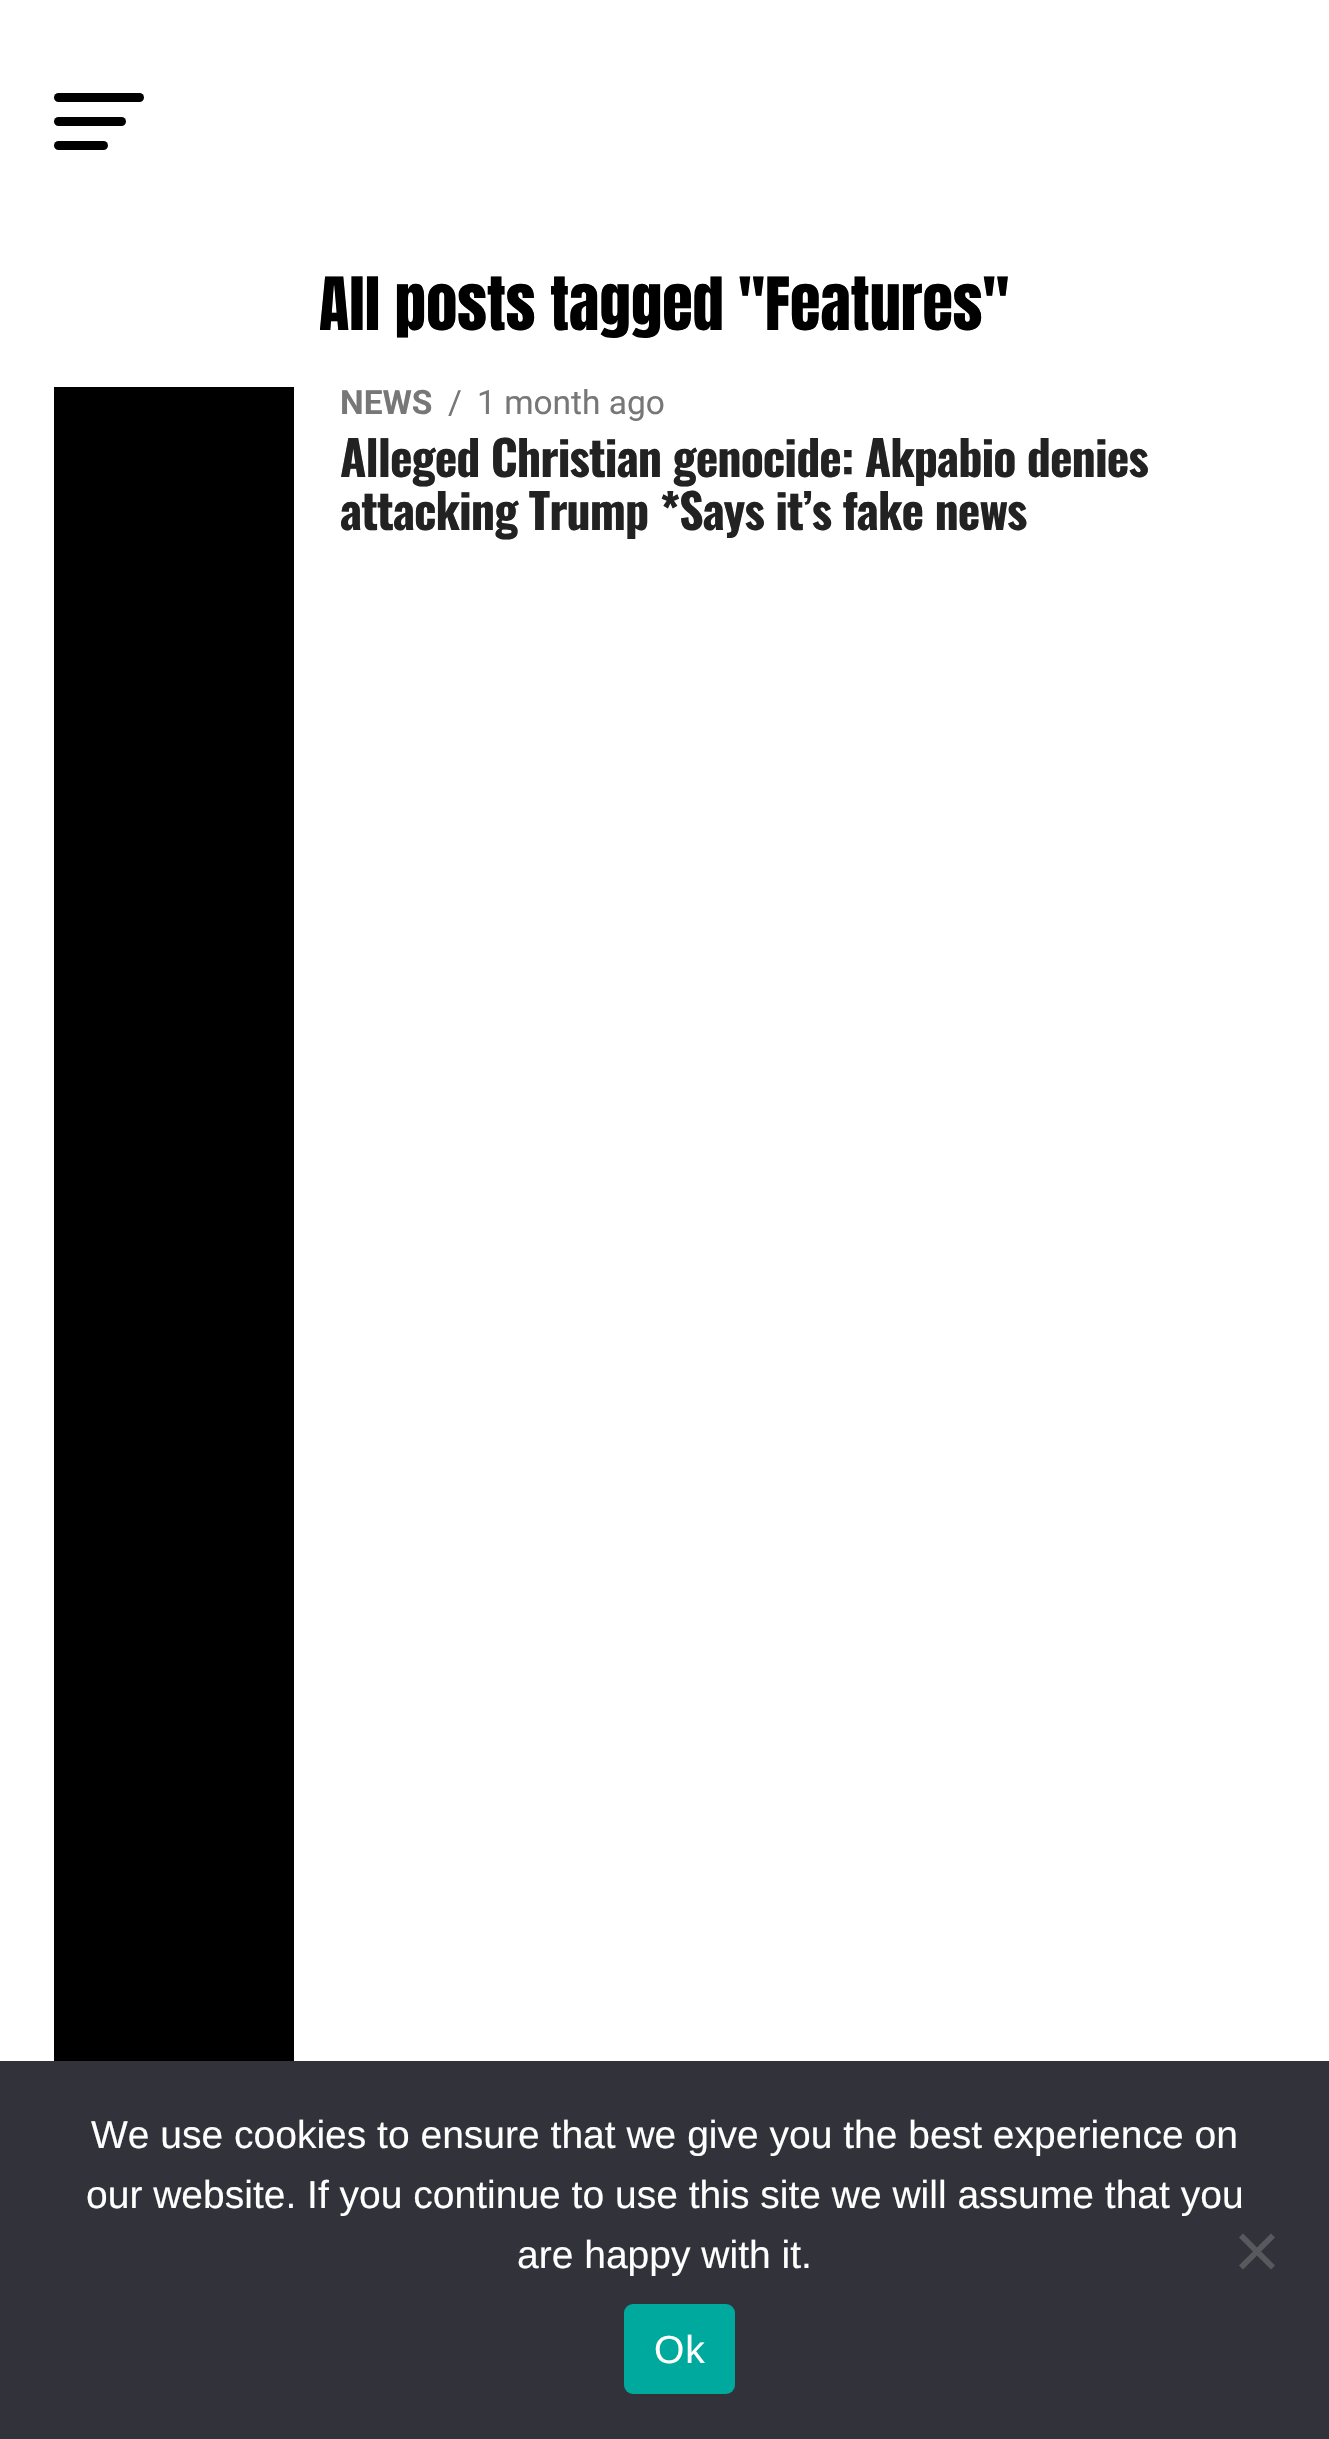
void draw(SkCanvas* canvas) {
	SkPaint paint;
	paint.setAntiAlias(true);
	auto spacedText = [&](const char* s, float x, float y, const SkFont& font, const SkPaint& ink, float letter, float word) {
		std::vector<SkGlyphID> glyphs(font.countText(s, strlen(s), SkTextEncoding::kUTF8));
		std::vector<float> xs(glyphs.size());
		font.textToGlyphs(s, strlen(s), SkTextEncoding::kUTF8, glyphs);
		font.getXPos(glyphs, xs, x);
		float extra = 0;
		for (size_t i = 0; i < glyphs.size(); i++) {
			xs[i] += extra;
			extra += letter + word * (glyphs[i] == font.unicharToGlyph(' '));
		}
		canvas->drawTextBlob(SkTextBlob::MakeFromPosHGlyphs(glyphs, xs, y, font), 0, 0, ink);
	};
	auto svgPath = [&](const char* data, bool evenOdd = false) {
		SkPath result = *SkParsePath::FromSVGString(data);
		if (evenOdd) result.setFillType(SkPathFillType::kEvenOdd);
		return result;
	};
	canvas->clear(0xffffffff);
	paint.setColor(0xff000000);
	canvas->drawRoundRect(SkRect::MakeXYWH(54, 93, 90, 9), 4.5, 4.5, paint);
	canvas->drawRoundRect(SkRect::MakeXYWH(54, 117, 72, 9), 4.5, 4.5, paint);
	canvas->drawRoundRect(SkRect::MakeXYWH(54, 141, 54, 9), 4.5, 4.5, paint);
	SkFont f1(fontMgr->matchFamilyStyle("Anton", SkFontStyle::Normal()), 62.4);
	f1.setSubpixel(true);
	canvas->drawString("All posts tagged \"Features\"", 319, 330, f1, paint);
	canvas->drawRect(SkRect::MakeXYWH(54, 387, 240, 1674), paint);
	SkFont f2(fontMgr->matchFamilyStyle("Roboto", SkFontStyle::Bold()), 33.5);
	f2.setSubpixel(true);
	paint.setColor(0xff777777);
	canvas->drawString("NEWS", 340, 414, f2, paint);
	SkFont f3(fontMgr->matchFamilyStyle("Roboto", SkFontStyle::Normal()), 33.5);
	f3.setSubpixel(true);
	canvas->drawString("/", 448, 414, f3, paint);
	canvas->drawString("1 month ago", 477, 414, f3, paint);
	SkFont f4(fontMgr->matchFamilyStyle("Oswald", SkFontStyle::Bold()), 48);
	f4.setSubpixel(true);
	paint.setColor(0xff222222);
	spacedText("Alleged Christian genocide: Akpabio denies", 340, 477, f4, paint, -0.95, 0);
	spacedText("attacking Trump *Says it’s fake news", 340, 530, f4, paint, -0.95, 0);
	paint.setColor(0xff32323a);
	canvas->drawRect(SkRect::MakeXYWH(0, 2061, 1329, 378), paint);
	SkFont f5(fontMgr->matchFamilyStyle("Liberation Sans", SkFontStyle::Normal()), 39);
	f5.setSubpixel(true);
	paint.setColor(0xffffffff);
	canvas->drawString("We use cookies to ensure that we give you the best experience on", 91, 2148, f5, paint);
	canvas->drawString("our website. If you continue to use this site we will assume that you", 86, 2208, f5, paint);
	canvas->drawString("are happy with it.", 517, 2268, f5, paint);
	paint.setColor(0xff59595d);
	canvas->drawPath(svgPath("M1271 2233.5L1275 2237.5L1243 2269.5L1239 2265.5Z"), paint);
	canvas->drawPath(svgPath("M1239 2237.5L1243 2233.5L1275 2265.5L1271 2269.5Z"), paint);
	paint.setColor(0xff00a99d);
	canvas->drawRoundRect(SkRect::MakeXYWH(624, 2304, 111, 90), 9, 9, paint);
	paint.setColor(0xffffffff);
	spacedText("Ok", 654, 2363, f5, paint, 1, 0);
}
